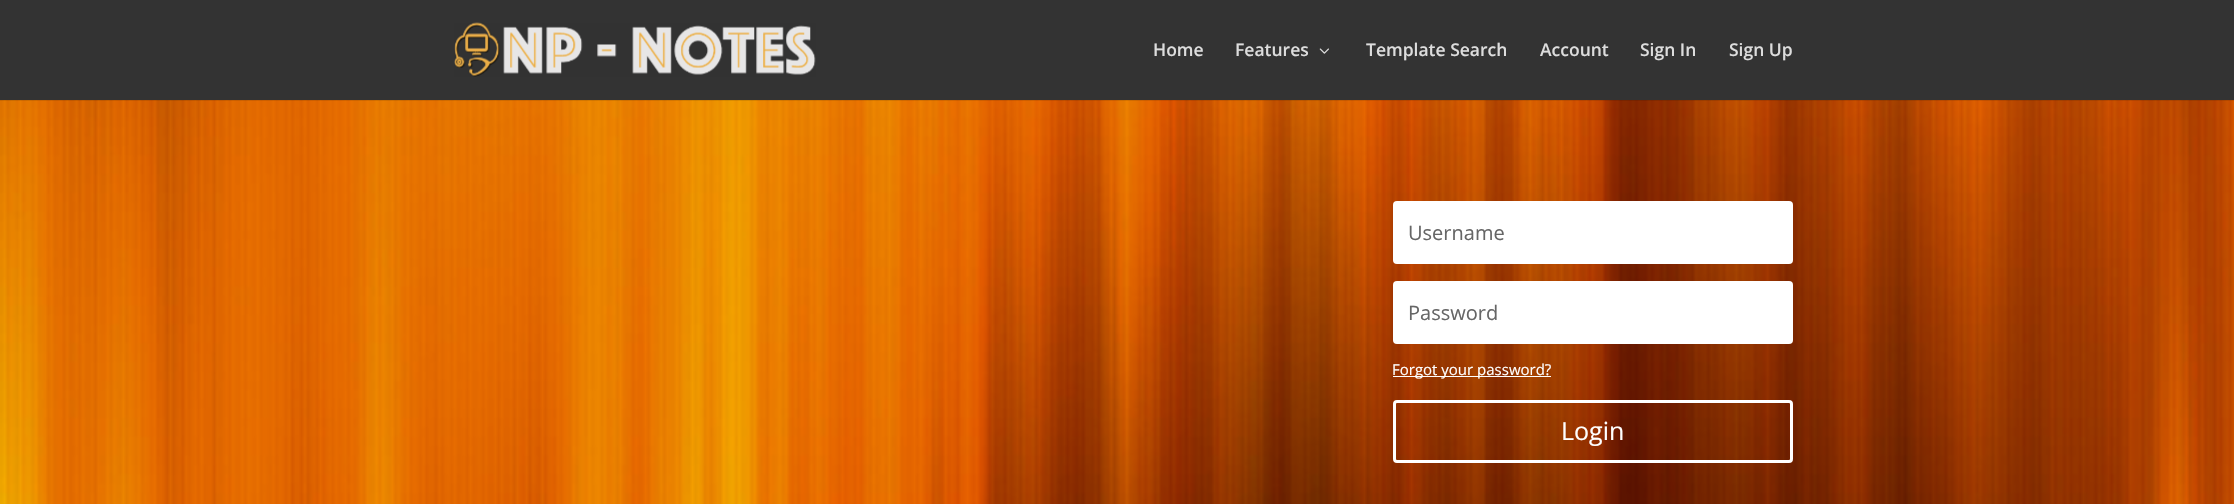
void draw(SkCanvas* canvas) {
	SkPaint paint;
	paint.setAntiAlias(true);
	canvas->clear(0xffffffff);
	canvas->drawImageRect(SkImages::DeferredFromEncodedData(SkData::MakeFromFileName("img3.png")), SkRect::MakeXYWH(0, 100, 2234, 404), SkSamplingOptions());
	paint.setColor(0x1a000000);
	canvas->drawRect(SkRect::MakeXYWH(0, 100, 2234, 1), paint);
	paint.setColor(0xff333333);
	canvas->drawRect(SkRect::MakeXYWH(0, 0, 2234, 100), paint);
	canvas->drawImageRect(SkImages::DeferredFromEncodedData(SkData::MakeFromFileName("img1.png")), SkRect::MakeXYWH(454, 22, 362, 55), SkSamplingOptions());
	SkFont f1(fontMgr->matchFamilyStyle("Open Sans", SkFontStyle(600, SkFontStyle::kNormal_Width, SkFontStyle::kUpright_Slant)), 17.5);
	f1.setSubpixel(true);
	paint.setColor(0xffdddddd);
	canvas->drawString("Home", 1153, 56, f1, paint);
	canvas->drawString("Features", 1235, 56, f1, paint);
	canvas->drawImageRect(SkImages::DeferredFromEncodedData(SkData::MakeFromFileName("img2.png")), SkRect::MakeXYWH(1319, 48, 10, 6), SkSamplingOptions());
	canvas->drawString("Template Search", 1366, 56, f1, paint);
	canvas->drawString("Account", 1540, 56, f1, paint);
	canvas->drawString("Sign In", 1640, 56, f1, paint);
	canvas->drawString("Sign Up", 1729, 56, f1, paint);
	paint.setColor(0xffffffff);
	canvas->drawRoundRect(SkRect::MakeXYWH(1393, 201, 400, 63), 4, 4, paint);
	SkFont f2(fontMgr->matchFamilyStyle("Open Sans", SkFontStyle::Normal()), 20);
	f2.setSubpixel(true);
	paint.setColor(0xff666666);
	canvas->drawString("Username", 1408, 240, f2, paint);
	paint.setColor(0xffffffff);
	canvas->drawRoundRect(SkRect::MakeXYWH(1393, 281, 400, 63), 4, 4, paint);
	paint.setColor(0xff666666);
	canvas->drawString("Password", 1408, 320, f2, paint);
	paint.setColor(0xffffffff);
	canvas->drawRect(SkRect::MakeXYWH(1393, 376, 158, 1), paint);
	SkFont f3(fontMgr->matchFamilyStyle("Open Sans", SkFontStyle::Normal()), 15);
	f3.setSubpixel(true);
	canvas->drawString("Forgot your password?", 1392, 375, f3, paint);
	paint.setStroke(true);
	paint.setStrokeWidth(3);
	canvas->drawRoundRect(SkRect::MakeXYWH(1394.5, 401.5, 397, 60), 2.5, 2.5, paint);
	SkFont f4(fontMgr->matchFamilyStyle("Open Sans", SkFontStyle::Normal()), 25);
	f4.setSubpixel(true);
	paint.setStroke(false);
	canvas->drawString("Login", 1561, 440, f4, paint);
}
